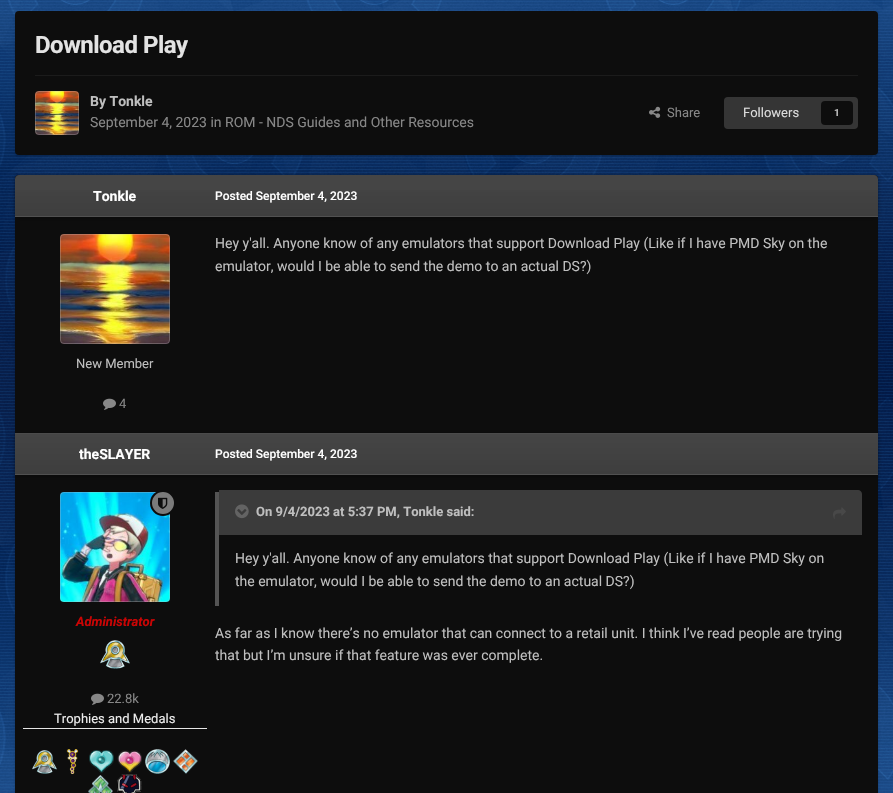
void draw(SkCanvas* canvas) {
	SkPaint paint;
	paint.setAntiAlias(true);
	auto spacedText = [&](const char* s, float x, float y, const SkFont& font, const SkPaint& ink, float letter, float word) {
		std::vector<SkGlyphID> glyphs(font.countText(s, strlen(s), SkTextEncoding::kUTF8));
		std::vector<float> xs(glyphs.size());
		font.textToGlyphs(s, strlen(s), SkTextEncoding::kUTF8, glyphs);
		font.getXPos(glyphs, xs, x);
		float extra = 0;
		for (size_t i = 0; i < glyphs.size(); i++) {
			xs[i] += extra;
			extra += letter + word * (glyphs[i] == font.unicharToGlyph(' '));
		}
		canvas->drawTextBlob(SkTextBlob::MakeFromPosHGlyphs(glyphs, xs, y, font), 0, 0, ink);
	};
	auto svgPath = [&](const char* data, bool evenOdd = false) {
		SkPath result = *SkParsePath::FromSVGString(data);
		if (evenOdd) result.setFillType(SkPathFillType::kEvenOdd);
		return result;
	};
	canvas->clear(0xffffffff);
	canvas->drawImageRect(SkImages::DeferredFromEncodedData(SkData::MakeFromFileName("img1.png")), SkRect::MakeXYWH(0, 0, 893, 793), SkSamplingOptions());
	canvas->drawImageRect(SkImages::DeferredFromEncodedData(SkData::MakeFromFileName("img2.png")), SkRect::MakeXYWH(0, 0, 893, 793), SkSamplingOptions());
	paint.setColor(0x33000000);
	paint.setMaskFilter(SkMaskFilter::MakeBlur(kNormal_SkBlurStyle, 1.5));
	canvas->drawRoundRect(SkRect::MakeXYWH(15, 12, 863, 144), 4, 4, paint);
	paint.setMaskFilter(nullptr);
	paint.setColor(0xff0d0d0d);
	canvas->drawRoundRect(SkRect::MakeXYWH(15, 11, 863, 144), 4, 4, paint);
	SkFont f1(fontMgr->matchFamilyStyle("Roboto", SkFontStyle::Bold()), 24);
	f1.setSubpixel(true);
	paint.setColor(0xffe3e3e3);
	spacedText("Download Play", 35, 53, f1, paint, -0.5, 0);
	paint.setColor(0xff1b1b1b);
	canvas->drawRect(SkRect::MakeXYWH(35, 75, 823, 1), paint);
	canvas->drawImageRect(SkImages::DeferredFromEncodedData(SkData::MakeFromFileName("img3.png")), SkRect::MakeXYWH(35, 91, 44, 44), SkSamplingOptions());
	paint.setStroke(true);
	paint.setStrokeWidth(1);
	paint.setColor(0x4dbfbfbf);
	canvas->drawRoundRect(SkRect::MakeXYWH(35.5, 91.5, 43, 43), 3.5, 3.5, paint);
	SkFont f2(fontMgr->matchFamilyStyle("Roboto", SkFontStyle::Bold()), 14);
	f2.setSubpixel(true);
	paint.setStroke(false);
	paint.setColor(0xffbfbfbf);
	canvas->drawString("By Tonkle", 90, 106, f2, paint);
	SkFont f3(fontMgr->matchFamilyStyle("Roboto", SkFontStyle::Normal()), 14);
	f3.setSubpixel(true);
	paint.setColor(0xff878787);
	canvas->drawString("September 4, 2023 in ROM - NDS Guides and Other Resources", 90, 127, f3, paint);
	canvas->drawImageRect(SkImages::DeferredFromEncodedData(SkData::MakeFromFileName("img4.png")), SkRect::MakeXYWH(649, 106, 12, 12), SkSamplingOptions());
	SkFont f4(fontMgr->matchFamilyStyle("Roboto", SkFontStyle::Normal()), 13);
	f4.setSubpixel(true);
	canvas->drawString("Share", 667, 117, f4, paint);
	paint.setColor(0xff353535);
	canvas->drawRoundRect(SkRect::MakeXYWH(724, 97, 134, 32), 4, 4, paint);
	paint.setColor(0xffdddddd);
	canvas->drawString("Followers", 743, 117, f4, paint);
	paint.setColor(0xff0d0d0d);
	canvas->drawRoundRect(SkRect::MakeXYWH(821, 101, 32, 24), 4, 4, paint);
	SkFont f5(fontMgr->matchFamilyStyle("Roboto", SkFontStyle::Bold()), 10);
	f5.setSubpixel(true);
	paint.setColor(0xffbfbfbf);
	canvas->drawString("1", 834, 116, f5, paint);
	paint.setColor(0x33000000);
	paint.setMaskFilter(SkMaskFilter::MakeBlur(kNormal_SkBlurStyle, 1.5));
	canvas->drawRoundRect(SkRect::MakeXYWH(15, 176, 863, 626), 4, 4, paint);
	paint.setMaskFilter(nullptr);
	paint.setColor(0xff0d0d0d);
	canvas->drawRoundRect(SkRect::MakeXYWH(15, 175, 863, 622), 4, 4, paint);
	canvas->save();
	canvas->clipPath(svgPath("M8 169H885V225H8ZM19 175H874C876 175 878 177 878 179V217H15V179C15 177 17 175 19 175Z", true), true);
	paint.setColor(0x4d000000);
	paint.setMaskFilter(SkMaskFilter::MakeBlur(kNormal_SkBlurStyle, 2));
	canvas->drawRoundRect(SkRect::MakeXYWH(15, 176, 863, 42), 4, 4, paint);
	paint.setMaskFilter(nullptr);
	canvas->restore();
	paint.setColor(0xbf575757);
	canvas->drawPath(svgPath("M19 175H874C876 175 878 177 878 179V217H15V179C15 177 17 175 19 175Z"), paint);
	{
		const SkColor colors[] = {0x00000000, 0x1a000000};
		const float stops[] = {0, 1};
		const SkPoint ends[] = {{447, 175}, {447, 216}};
		paint.setShader(SkGradientShader::MakeLinear(ends, colors, stops, 2, SkTileMode::kClamp));
		paint.setAlpha(255);
	}
	canvas->drawRect(SkRect::MakeXYWH(15, 190, 863, 26), paint);
	paint.setShader(nullptr);
	paint.setColor(0xff515151);
	canvas->drawRect(SkRect::MakeXYWH(15, 216, 863, 1), paint);
	paint.setColor(0xffffffff);
	canvas->drawString("Tonkle", 93, 201, f2, paint);
	canvas->drawImageRect(SkImages::DeferredFromEncodedData(SkData::MakeFromFileName("img5.png")), SkRect::MakeXYWH(60, 234, 110, 110), SkSamplingOptions());
	paint.setStroke(true);
	paint.setColor(0x4dbfbfbf);
	canvas->drawRoundRect(SkRect::MakeXYWH(60.5, 234.5, 109, 109), 3.5, 3.5, paint);
	paint.setStroke(false);
	paint.setColor(0xffbfbfbf);
	canvas->drawString("New Member", 76, 368, f4, paint);
	canvas->drawImageRect(SkImages::DeferredFromEncodedData(SkData::MakeFromFileName("img6.png")), SkRect::MakeXYWH(103, 398, 13, 12), SkSamplingOptions());
	paint.setColor(0xff878787);
	canvas->drawString("4", 119, 408, f4, paint);
	SkFont f6(fontMgr->matchFamilyStyle("Roboto", SkFontStyle(500, SkFontStyle::kNormal_Width, SkFontStyle::kUpright_Slant)), 12);
	f6.setSubpixel(true);
	paint.setColor(0xffffffff);
	canvas->drawString("Posted September 4, 2023", 215, 200, f6, paint);
	paint.setColor(0xffbfbfbf);
	canvas->drawString("Hey y'all. Anyone know of any emulators that support Download Play (Like if I have PMD Sky on the", 215, 248, f3, paint);
	canvas->drawString("emulator, would I be able to send the demo to an actual DS?)", 215, 271, f3, paint);
	paint.setColor(0x4d000000);
	paint.setMaskFilter(SkMaskFilter::MakeBlur(kNormal_SkBlurStyle, 2));
	canvas->drawRect(SkRect::MakeXYWH(15, 434, 863, 42), paint);
	paint.setMaskFilter(nullptr);
	{
		const SkColor colors[] = {0xff454545, 0xff3e3e3e};
		const float stops[] = {0, 1};
		const SkPoint ends[] = {{447, 434}, {447, 474}};
		paint.setShader(SkGradientShader::MakeLinear(ends, colors, stops, 2, SkTileMode::kClamp));
		paint.setAlpha(255);
	}
	canvas->drawRect(SkRect::MakeXYWH(15, 434, 863, 40), paint);
	paint.setShader(nullptr);
	paint.setColor(0xff4b4b4b);
	canvas->drawRect(SkRect::MakeXYWH(15, 433, 863, 1), paint);
	paint.setColor(0xff515151);
	canvas->drawRect(SkRect::MakeXYWH(15, 474, 863, 1), paint);
	paint.setColor(0xffffffff);
	canvas->drawString("theSLAYER", 79, 459, f2, paint);
	canvas->drawImageRect(SkImages::DeferredFromEncodedData(SkData::MakeFromFileName("img8.png")), SkRect::MakeXYWH(60, 492, 110, 110), SkSamplingOptions());
	paint.setStroke(true);
	paint.setColor(0x4dbfbfbf);
	canvas->drawRoundRect(SkRect::MakeXYWH(60.5, 492.5, 109, 109), 3.5, 3.5, paint);
	paint.setStroke(false);
	paint.setColor(0xff7b7b7b);
	canvas->drawCircle(163, 503, 12, paint);
	paint.setStroke(true);
	paint.setStrokeWidth(2);
	paint.setColor(0xff0d0d0d);
	canvas->drawCircle(163, 503, 12, paint);
	canvas->drawImageRect(SkImages::DeferredFromEncodedData(SkData::MakeFromFileName("img7.png")), SkRect::MakeXYWH(158, 497, 10, 12), SkSamplingOptions());
	SkFont f7(fontMgr->matchFamilyStyle("Roboto", SkFontStyle::BoldItalic()), 13);
	f7.setSubpixel(true);
	paint.setStroke(false);
	paint.setColor(0xffca0404);
	canvas->drawString("Administrator", 76, 626, f7, paint);
	canvas->drawImageRect(SkImages::DeferredFromEncodedData(SkData::MakeFromFileName("img9.png")), SkRect::MakeXYWH(100, 640, 30, 29), SkSamplingOptions());
	canvas->drawImageRect(SkImages::DeferredFromEncodedData(SkData::MakeFromFileName("img6.png")), SkRect::MakeXYWH(91, 693, 13, 12), SkSamplingOptions());
	paint.setColor(0xff878787);
	canvas->drawString("22.8k", 107, 703, f4, paint);
	paint.setColor(0xffe5e5e5);
	canvas->drawRect(SkRect::MakeXYWH(23, 728, 184, 1), paint);
	paint.setColor(0xffededed);
	canvas->drawString("Trophies and Medals", 54, 723, f4, paint);
	canvas->drawImageRect(SkImages::DeferredFromEncodedData(SkData::MakeFromFileName("img10.png")), SkRect::MakeXYWH(32, 750, 25, 24), SkSamplingOptions());
	canvas->drawImageRect(SkImages::DeferredFromEncodedData(SkData::MakeFromFileName("img11.png")), SkRect::MakeXYWH(66, 749, 13, 25), SkSamplingOptions());
	canvas->drawImageRect(SkImages::DeferredFromEncodedData(SkData::MakeFromFileName("img12.png")), SkRect::MakeXYWH(89, 750, 25, 23), SkSamplingOptions());
	canvas->drawImageRect(SkImages::DeferredFromEncodedData(SkData::MakeFromFileName("img13.png")), SkRect::MakeXYWH(117, 750, 25, 23), SkSamplingOptions());
	canvas->drawImageRect(SkImages::DeferredFromEncodedData(SkData::MakeFromFileName("img14.png")), SkRect::MakeXYWH(145, 749, 25, 25), SkSamplingOptions());
	canvas->drawImageRect(SkImages::DeferredFromEncodedData(SkData::MakeFromFileName("img15.png")), SkRect::MakeXYWH(173, 749, 25, 25), SkSamplingOptions());
	canvas->drawImageRect(SkImages::DeferredFromEncodedData(SkData::MakeFromFileName("img16.png")), SkRect::MakeXYWH(88, 775, 25, 18), SkSamplingOptions());
	canvas->drawImageRect(SkImages::DeferredFromEncodedData(SkData::MakeFromFileName("img17.png")), SkRect::MakeXYWH(117, 774, 25, 19), SkSamplingOptions());
	paint.setColor(0xffffffff);
	canvas->drawString("Posted September 4, 2023", 215, 458, f6, paint);
	paint.setColor(0xff545454);
	canvas->drawRect(SkRect::MakeXYWH(215, 492, 4, 114), paint);
	paint.setColor(0xff3b3b3b);
	canvas->drawPath(svgPath("M219 490H858C860 490 862 492 862 494V535H219Z"), paint);
	canvas->drawImageRect(SkImages::DeferredFromEncodedData(SkData::MakeFromFileName("img18.png")), SkRect::MakeXYWH(235, 504, 14, 15), SkSamplingOptions());
	SkFont f8(fontMgr->matchFamilyStyle("Roboto", SkFontStyle::Bold()), 13);
	f8.setSubpixel(true);
	paint.setColor(0xffbfbfbf);
	canvas->drawString("On 9/4/2023 at 5:37 PM, Tonkle said:", 256, 516, f8, paint);
	canvas->drawImageRect(SkImages::DeferredFromEncodedData(SkData::MakeFromFileName("img19.png")), SkRect::MakeXYWH(833, 507, 13, 12), SkSamplingOptions());
	canvas->drawString("Hey y'all. Anyone know of any emulators that support Download Play (Like if I have PMD Sky on", 235, 563, f3, paint);
	canvas->drawString("the emulator, would I be able to send the demo to an actual DS?)", 235, 586, f3, paint);
	canvas->drawString("As far as I know there’s no emulator that can connect to a retail unit. I think I’ve read people are trying", 215, 638, f3, paint);
	canvas->drawString("that but I’m unsure if that feature was ever complete.", 215, 660, f3, paint);
}
